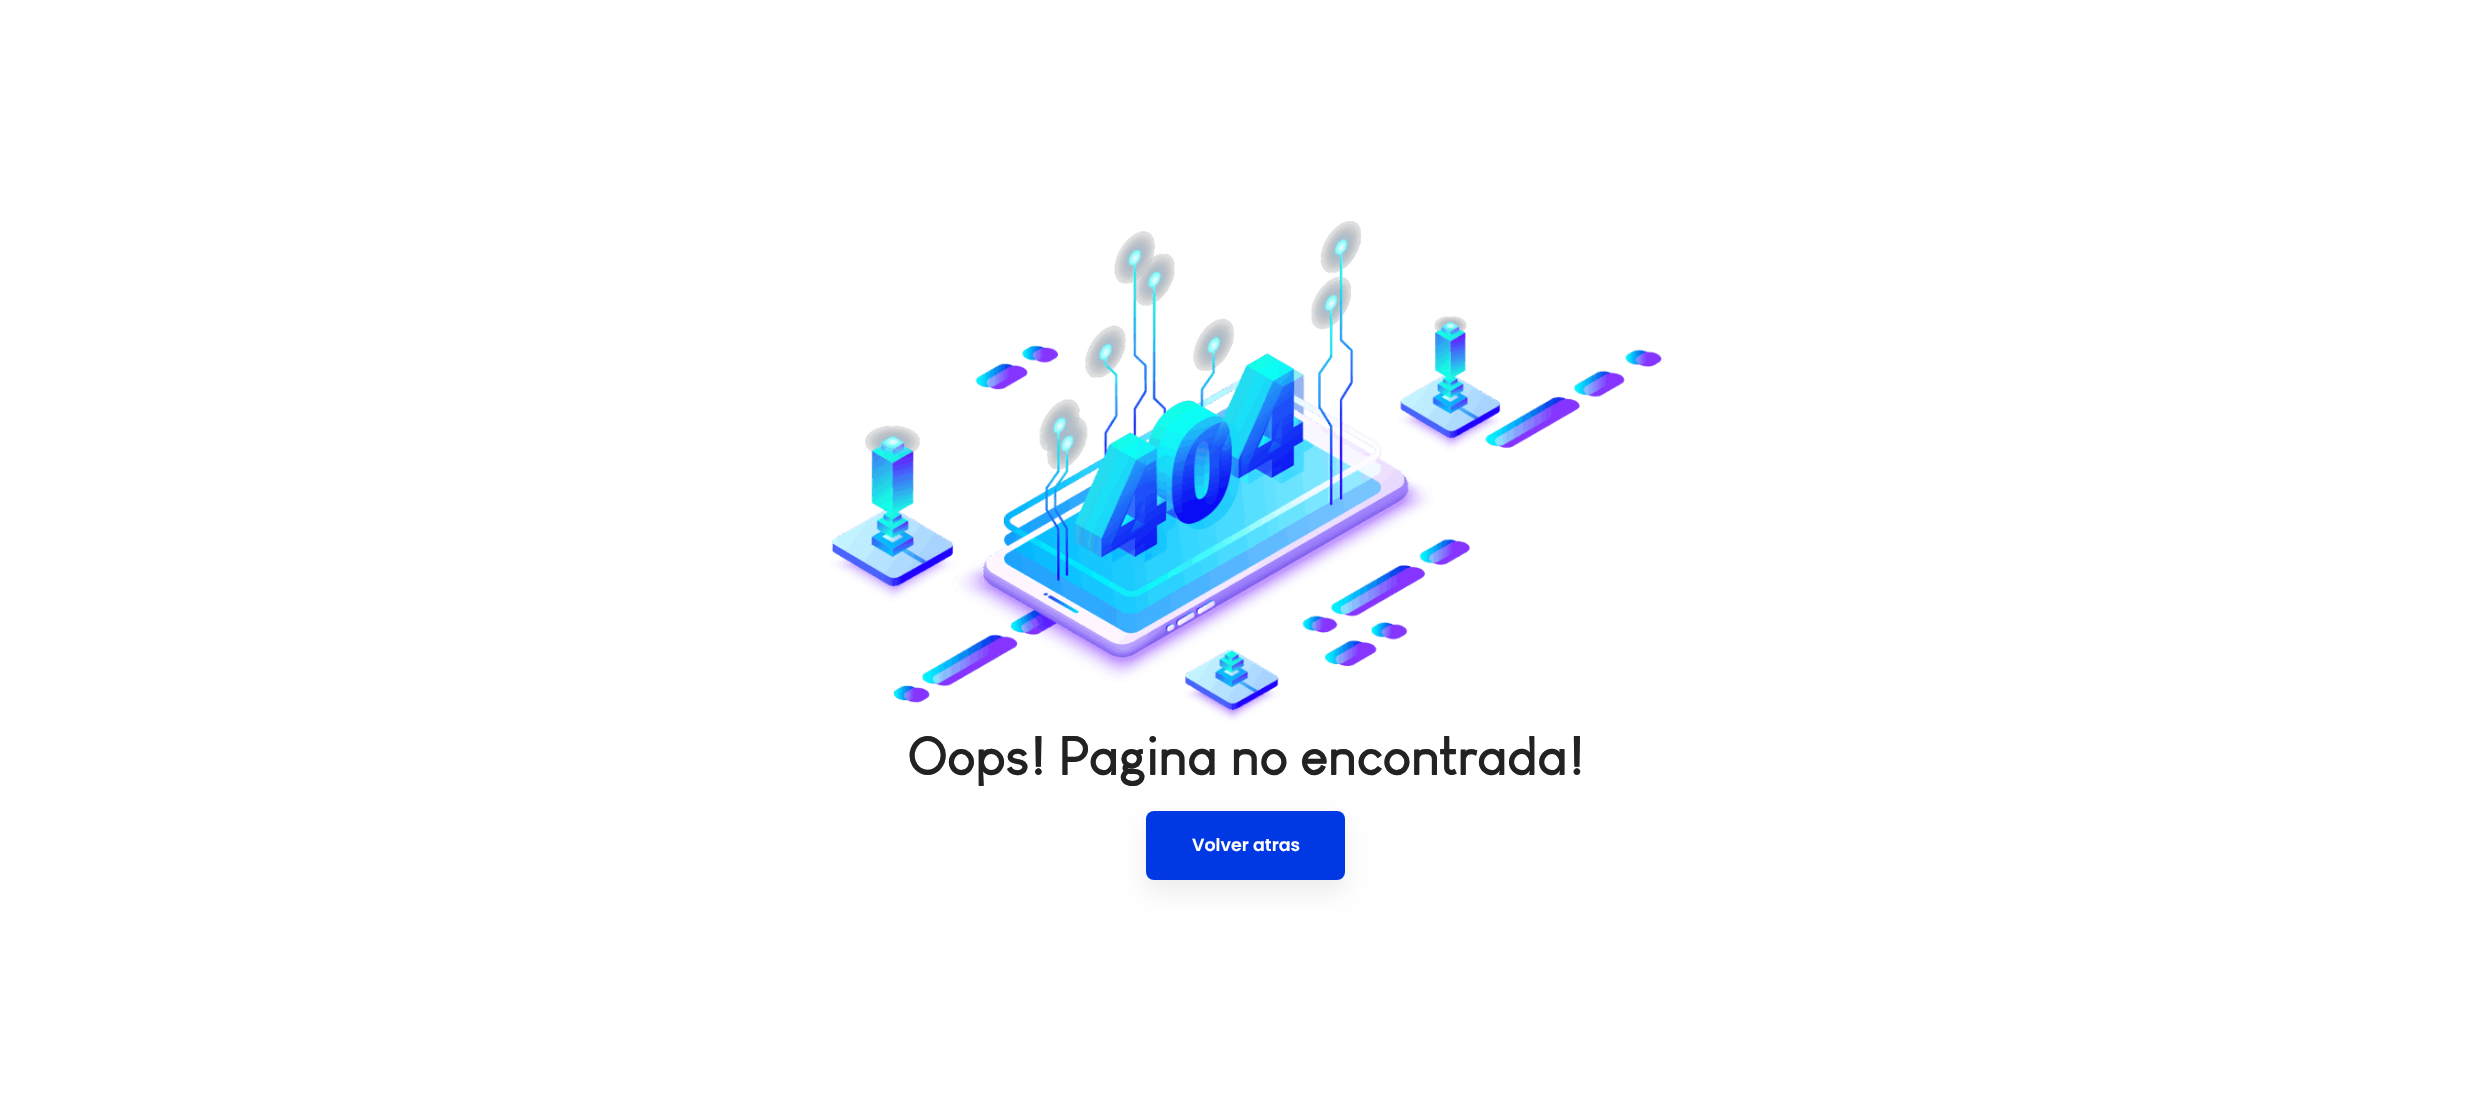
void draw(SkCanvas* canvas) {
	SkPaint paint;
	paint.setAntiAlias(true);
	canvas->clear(0xffffffff);
	canvas->drawImageRect(SkImages::DeferredFromEncodedData(SkData::MakeFromFileName("img1.png")), SkRect::MakeXYWH(831, 221, 831, 500), SkSamplingOptions());
	SkFont f1(fontMgr->matchFamilyStyle("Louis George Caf", SkFontStyle::Bold()), 52.5);
	f1.setSubpixel(true);
	paint.setColor(0xff222222);
	canvas->drawString("Oops! Pagina no encontrada!", 907, 775, f1, paint);
	paint.setColor(0x12000000);
	paint.setMaskFilter(SkMaskFilter::MakeBlur(kNormal_SkBlurStyle, 12.5));
	canvas->drawRoundRect(SkRect::MakeXYWH(1146, 824, 199, 69), 8, 8, paint);
	paint.setMaskFilter(nullptr);
	paint.setColor(0xff0038e3);
	canvas->drawRoundRect(SkRect::MakeXYWH(1146, 811, 199, 69), 8, 8, paint);
	SkFont f2(fontMgr->matchFamilyStyle("Poppins", SkFontStyle(600, SkFontStyle::kNormal_Width, SkFontStyle::kUpright_Slant)), 17.5);
	f2.setSubpixel(true);
	paint.setColor(0xffffffff);
	canvas->drawString("Volver atras", 1192, 851, f2, paint);
}
